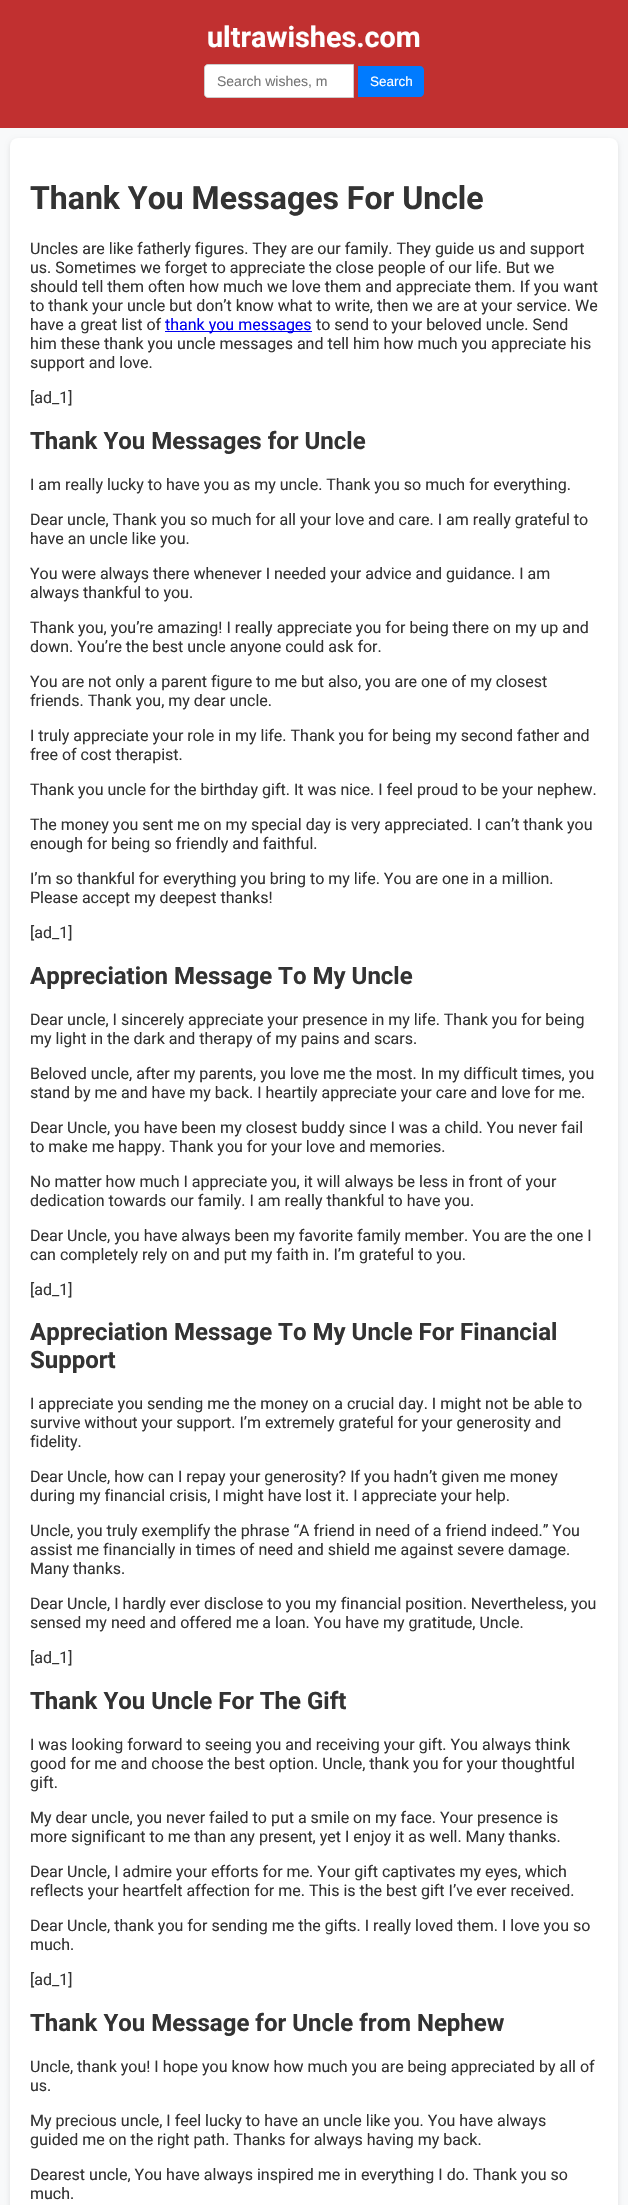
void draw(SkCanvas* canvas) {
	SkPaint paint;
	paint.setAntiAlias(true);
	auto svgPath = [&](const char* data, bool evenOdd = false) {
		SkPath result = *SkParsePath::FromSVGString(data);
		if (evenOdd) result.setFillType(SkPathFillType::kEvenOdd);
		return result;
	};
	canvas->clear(0xfff8f9fa);
	paint.setColor(0xffc13030);
	canvas->drawRect(SkRect::MakeXYWH(0, 0, 628, 128), paint);
	SkFont f1(fontMgr->matchFamilyStyle("Roboto", SkFontStyle::Bold()), 28.75);
	f1.setSubpixel(true);
	paint.setColor(0xffffffff);
	canvas->drawString("ultrawishes.com", 207, 47, f1, paint);
	canvas->drawPath(svgPath("M208 64.5H353.5V97.5H208C206 97.5 204.5 96 204.5 94V68C204.5 66 206 64.5 208 64.5Z"), paint);
	paint.setStroke(true);
	paint.setStrokeWidth(1);
	paint.setColor(0xffcccccc);
	canvas->drawPath(svgPath("M208 64.5H353.5V97.5H208C206 97.5 204.5 96 204.5 94V68C204.5 66 206 64.5 208 64.5Z"), paint);
	SkFont f2(fontMgr->matchFamilyStyle("Liberation Sans", SkFontStyle::Normal()), 14);
	f2.setSubpixel(true);
	paint.setStroke(false);
	paint.setColor(0xff757575);
	canvas->drawString("Search wishes, m", 217, 86, f2, paint);
	paint.setColor(0xff007bff);
	canvas->drawPath(svgPath("M358 66H420C422 66 424 68 424 70V93C424 95 422 97 420 97H358Z"), paint);
	SkFont f3(fontMgr->matchFamilyStyle("Liberation Sans", SkFontStyle::Normal()), 13.5);
	f3.setSubpixel(true);
	paint.setColor(0xffffffff);
	canvas->drawString("Search", 370, 86, f3, paint);
	paint.setColor(0x1a000000);
	paint.setMaskFilter(SkMaskFilter::MakeBlur(kNormal_SkBlurStyle, 2.5));
	canvas->drawRoundRect(SkRect::MakeXYWH(10, 140, 608, 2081), 8, 8, paint);
	paint.setMaskFilter(nullptr);
	paint.setColor(0xffffffff);
	canvas->drawRoundRect(SkRect::MakeXYWH(10, 138, 608, 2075), 8, 8, paint);
	SkFont f4(fontMgr->matchFamilyStyle("Roboto", SkFontStyle::Bold()), 32);
	f4.setSubpixel(true);
	paint.setColor(0xff333333);
	canvas->drawString("Thank You Messages For Uncle", 30, 209, f4, paint);
	SkFont f5(fontMgr->matchFamilyStyle("Roboto", SkFontStyle::Normal()), 16);
	f5.setSubpixel(true);
	canvas->drawString("Uncles are like fatherly figures. They are our family. They guide us and support", 30, 254, f5, paint);
	canvas->drawString("us. Sometimes we forget to appreciate the close people of our life. But we", 30, 273, f5, paint);
	canvas->drawString("should tell them often how much we love them and appreciate them. If you want", 30, 292, f5, paint);
	canvas->drawString("to thank your uncle but don’t know what to write, then we are at your service. We", 30, 311, f5, paint);
	canvas->drawString("have a great list of", 30, 330, f5, paint);
	paint.setColor(0xff0000ee);
	canvas->drawRect(SkRect::MakeXYWH(165, 331, 147, 1), paint);
	canvas->drawString("thank you messages", 165, 330, f5, paint);
	paint.setColor(0xff333333);
	canvas->drawString("to send to your beloved uncle. Send", 316, 330, f5, paint);
	canvas->drawString("him these thank you uncle messages and tell him how much you appreciate his", 30, 349, f5, paint);
	canvas->drawString("support and love.", 30, 368, f5, paint);
	canvas->drawString("[ad_1]", 30, 403, f5, paint);
	SkFont f6(fontMgr->matchFamilyStyle("Roboto", SkFontStyle::Bold()), 24);
	f6.setSubpixel(true);
	canvas->drawString("Thank You Messages for Uncle", 30, 449, f6, paint);
	canvas->drawString("I am really lucky to have you as my uncle. Thank you so much for everything.", 30, 490, f5, paint);
	canvas->drawString("Dear uncle, Thank you so much for all your love and care. I am really grateful to", 30, 525, f5, paint);
	canvas->drawString("have an uncle like you.", 30, 544, f5, paint);
	canvas->drawString("You were always there whenever I needed your advice and guidance. I am", 30, 579, f5, paint);
	canvas->drawString("always thankful to you.", 30, 598, f5, paint);
	canvas->drawString("Thank you, you’re amazing! I really appreciate you for being there on my up and", 30, 633, f5, paint);
	canvas->drawString("down. You’re the best uncle anyone could ask for.", 30, 652, f5, paint);
	canvas->drawString("You are not only a parent figure to me but also, you are one of my closest", 30, 687, f5, paint);
	canvas->drawString("friends. Thank you, my dear uncle.", 30, 706, f5, paint);
	canvas->drawString("I truly appreciate your role in my life. Thank you for being my second father and", 30, 741, f5, paint);
	canvas->drawString("free of cost therapist.", 30, 760, f5, paint);
	canvas->drawString("Thank you uncle for the birthday gift. It was nice. I feel proud to be your nephew.", 30, 795, f5, paint);
	canvas->drawString("The money you sent me on my special day is very appreciated. I can’t thank you", 30, 830, f5, paint);
	canvas->drawString("enough for being so friendly and faithful.", 30, 849, f5, paint);
	canvas->drawString("I’m so thankful for everything you bring to my life. You are one in a million.", 30, 884, f5, paint);
	canvas->drawString("Please accept my deepest thanks!", 30, 903, f5, paint);
	canvas->drawString("[ad_1]", 30, 938, f5, paint);
	canvas->drawString("Appreciation Message To My Uncle", 30, 984, f6, paint);
	canvas->drawString("Dear uncle, I sincerely appreciate your presence in my life. Thank you for being", 30, 1025, f5, paint);
	canvas->drawString("my light in the dark and therapy of my pains and scars.", 30, 1044, f5, paint);
	canvas->drawString("Beloved uncle, after my parents, you love me the most. In my difficult times, you", 30, 1079, f5, paint);
	canvas->drawString("stand by me and have my back. I heartily appreciate your care and love for me.", 30, 1098, f5, paint);
	canvas->drawString("Dear Uncle, you have been my closest buddy since I was a child. You never fail", 30, 1133, f5, paint);
	canvas->drawString("to make me happy. Thank you for your love and memories.", 30, 1152, f5, paint);
	canvas->drawString("No matter how much I appreciate you, it will always be less in front of your", 30, 1187, f5, paint);
	canvas->drawString("dedication towards our family. I am really thankful to have you.", 30, 1206, f5, paint);
	canvas->drawString("Dear Uncle, you have always been my favorite family member. You are the one I", 30, 1241, f5, paint);
	canvas->drawString("can completely rely on and put my faith in. I’m grateful to you.", 30, 1260, f5, paint);
	canvas->drawString("[ad_1]", 30, 1295, f5, paint);
	canvas->drawString("Appreciation Message To My Uncle For Financial", 30, 1340, f6, paint);
	canvas->drawString("Support", 30, 1368, f6, paint);
	canvas->drawString("I appreciate you sending me the money on a crucial day. I might not be able to", 30, 1409, f5, paint);
	canvas->drawString("survive without your support. I’m extremely grateful for your generosity and", 30, 1428, f5, paint);
	canvas->drawString("fidelity.", 30, 1447, f5, paint);
	canvas->drawString("Dear Uncle, how can I repay your generosity? If you hadn’t given me money", 30, 1482, f5, paint);
	canvas->drawString("during my financial crisis, I might have lost it. I appreciate your help.", 30, 1501, f5, paint);
	canvas->drawString("Uncle, you truly exemplify the phrase “A friend in need of a friend indeed.” You", 30, 1536, f5, paint);
	canvas->drawString("assist me financially in times of need and shield me against severe damage.", 30, 1555, f5, paint);
	canvas->drawString("Many thanks.", 30, 1574, f5, paint);
	canvas->drawString("Dear Uncle, I hardly ever disclose to you my financial position. Nevertheless, you", 30, 1609, f5, paint);
	canvas->drawString("sensed my need and offered me a loan. You have my gratitude, Uncle.", 30, 1628, f5, paint);
	canvas->drawString("[ad_1]", 30, 1663, f5, paint);
	canvas->drawString("Thank You Uncle For The Gift", 30, 1709, f6, paint);
	canvas->drawString("I was looking forward to seeing you and receiving your gift. You always think", 30, 1750, f5, paint);
	canvas->drawString("good for me and choose the best option. Uncle, thank you for your thoughtful", 30, 1769, f5, paint);
	canvas->drawString("gift.", 30, 1788, f5, paint);
	canvas->drawString("My dear uncle, you never failed to put a smile on my face. Your presence is", 30, 1823, f5, paint);
	canvas->drawString("more significant to me than any present, yet I enjoy it as well. Many thanks.", 30, 1842, f5, paint);
	canvas->drawString("Dear Uncle, I admire your efforts for me. Your gift captivates my eyes, which", 30, 1877, f5, paint);
	canvas->drawString("reflects your heartfelt affection for me. This is the best gift I’ve ever received.", 30, 1896, f5, paint);
	canvas->drawString("Dear Uncle, thank you for sending me the gifts. I really loved them. I love you so", 30, 1931, f5, paint);
	canvas->drawString("much.", 30, 1950, f5, paint);
	canvas->drawString("[ad_1]", 30, 1985, f5, paint);
	canvas->drawString("Thank You Message for Uncle from Nephew", 30, 2031, f6, paint);
	canvas->drawString("Uncle, thank you! I hope you know how much you are being appreciated by all of", 30, 2072, f5, paint);
	canvas->drawString("us.", 30, 2091, f5, paint);
	canvas->drawString("My precious uncle, I feel lucky to have an uncle like you. You have always", 30, 2126, f5, paint);
	canvas->drawString("guided me on the right path. Thanks for always having my back.", 30, 2145, f5, paint);
	canvas->drawString("Dearest uncle, You have always inspired me in everything I do. Thank you so", 30, 2180, f5, paint);
	canvas->drawString("much.", 30, 2199, f5, paint);
}
